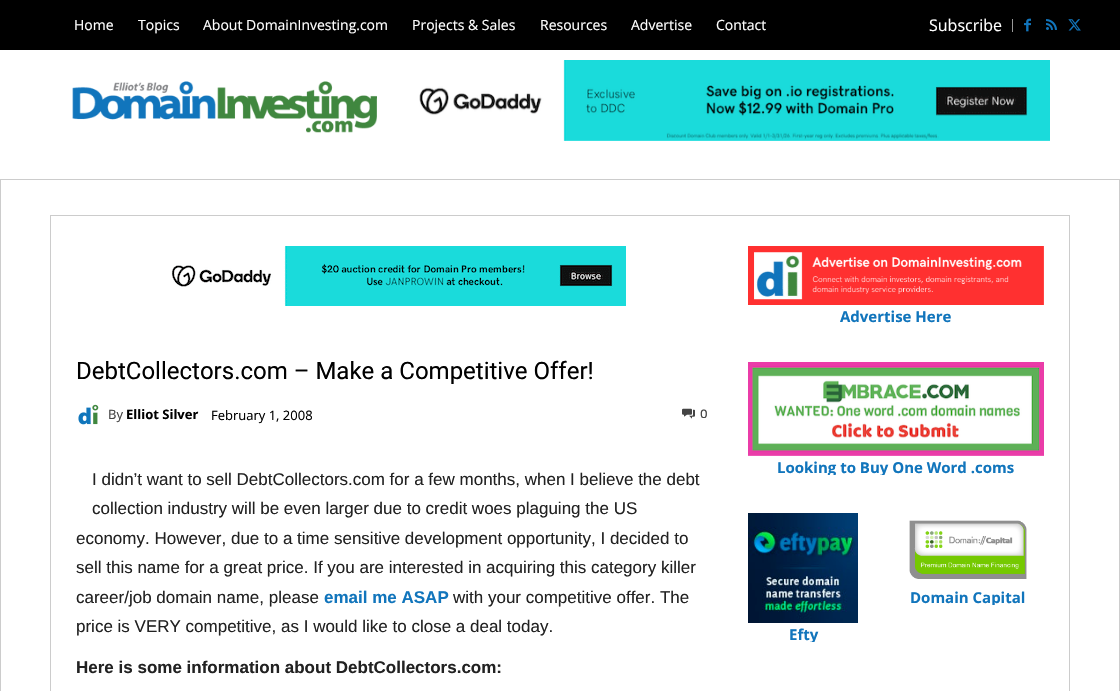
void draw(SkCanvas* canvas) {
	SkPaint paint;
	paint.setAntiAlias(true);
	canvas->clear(0xffffffff);
	paint.setColor(0xff000000);
	canvas->drawRect(SkRect::MakeXYWH(0, 0, 1120, 50), paint);
	SkFont f1(fontMgr->matchFamilyStyle("Open Sans", SkFontStyle::Normal()), 14);
	f1.setSubpixel(true);
	paint.setColor(0xffffffff);
	canvas->drawString("Home", 74, 30, f1, paint);
	canvas->drawString("Topics", 138, 30, f1, paint);
	canvas->drawString("About DomainInvesting.com", 203, 30, f1, paint);
	canvas->drawString("Projects & Sales", 412, 30, f1, paint);
	canvas->drawString("Resources", 540, 30, f1, paint);
	canvas->drawString("Advertise", 631, 30, f1, paint);
	canvas->drawString("Contact", 716, 30, f1, paint);
	SkFont f2(fontMgr->matchFamilyStyle("Open Sans", SkFontStyle::Normal()), 16);
	f2.setSubpixel(true);
	canvas->drawString("Subscribe", 929, 31, f2, paint);
	paint.setColor(0xff999999);
	canvas->drawRect(SkRect::MakeXYWH(1012, 19, 1, 13), paint);
	canvas->drawImageRect(SkImages::DeferredFromEncodedData(SkData::MakeFromFileName("img1.png")), SkRect::MakeXYWH(1024, 18, 7, 14), SkSamplingOptions());
	canvas->drawImageRect(SkImages::DeferredFromEncodedData(SkData::MakeFromFileName("img2.png")), SkRect::MakeXYWH(1046, 19, 11, 11), SkSamplingOptions());
	canvas->drawImageRect(SkImages::DeferredFromEncodedData(SkData::MakeFromFileName("img3.png")), SkRect::MakeXYWH(1068, 19, 13, 12), SkSamplingOptions());
	canvas->drawImageRect(SkImages::DeferredFromEncodedData(SkData::MakeFromFileName("img4.png")), SkRect::MakeXYWH(72, 81, 305, 52), SkSamplingOptions());
	canvas->drawImageRect(SkImages::DeferredFromEncodedData(SkData::MakeFromFileName("img5.png")), SkRect::MakeXYWH(419, 60, 631, 81), SkSamplingOptions());
	paint.setStroke(true);
	paint.setStrokeWidth(1);
	paint.setColor(0xffcccccc);
	canvas->drawRect(SkRect::MakeXYWH(0.5, 179.5, 1119, 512), paint);
	canvas->drawRect(SkRect::MakeXYWH(50.5, 215.5, 1019, 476), paint);
	canvas->drawImageRect(SkImages::DeferredFromEncodedData(SkData::MakeFromFileName("img6.png")), SkRect::MakeXYWH(171, 246, 455, 60), SkSamplingOptions());
	SkFont f3(fontMgr->matchFamilyStyle("Roboto", SkFontStyle::Normal()), 24);
	f3.setSubpixel(true);
	paint.setStroke(false);
	paint.setColor(0xff000000);
	canvas->drawString("DebtCollectors.com – Make a Competitive Offer!", 76, 379, f3, paint);
	canvas->drawImageRect(SkImages::DeferredFromEncodedData(SkData::MakeFromFileName("img7.png")), SkRect::MakeXYWH(78, 404, 21, 21), SkSamplingOptions());
	SkFont f4(fontMgr->matchFamilyStyle("Open Sans", SkFontStyle::Normal()), 13);
	f4.setSubpixel(true);
	paint.setColor(0xff444444);
	canvas->drawString("By", 108, 419, f4, paint);
	SkFont f5(fontMgr->matchFamilyStyle("Open Sans", SkFontStyle::Bold()), 13);
	f5.setSubpixel(true);
	paint.setColor(0xff000000);
	canvas->drawString("Elliot Silver", 126, 419, f5, paint);
	canvas->drawString("February 1, 2008", 211, 420, f4, paint);
	canvas->drawImageRect(SkImages::DeferredFromEncodedData(SkData::MakeFromFileName("img8.png")), SkRect::MakeXYWH(682, 408, 13, 11), SkSamplingOptions());
	SkFont f6(fontMgr->matchFamilyStyle("Rubik", SkFontStyle::Normal()), 12);
	f6.setSubpixel(true);
	paint.setColor(0xff444444);
	canvas->drawString("0", 700, 418, f6, paint);
	SkFont f7(fontMgr->matchFamilyStyle("Liberation Sans", SkFontStyle::Normal()), 17);
	f7.setSubpixel(true);
	paint.setColor(0xff222222);
	canvas->drawString("I didn’t want to sell DebtCollectors.com for a few months, when I believe the debt", 92, 485, f7, paint);
	canvas->drawString("collection industry will be even larger due to credit woes plaguing the US", 92, 514, f7, paint);
	canvas->drawString("economy. However, due to a time sensitive development opportunity, I decided to", 76, 544, f7, paint);
	canvas->drawString("sell this name for a great price. If you are interested in acquiring this category killer", 76, 573, f7, paint);
	canvas->drawString("career/job domain name, please", 76, 603, f7, paint);
	SkFont f8(fontMgr->matchFamilyStyle("Liberation Sans", SkFontStyle::Bold()), 17);
	f8.setSubpixel(true);
	paint.setColor(0xff1175bc);
	canvas->drawString("email me ASAP", 324, 603, f8, paint);
	paint.setColor(0xff222222);
	canvas->drawString("with your competitive offer. The", 453, 603, f7, paint);
	canvas->drawString("price is VERY competitive, as I would like to close a deal today.", 76, 632, f7, paint);
	canvas->drawString("Here is some information about DebtCollectors.com:", 76, 673, f8, paint);
	canvas->drawImageRect(SkImages::DeferredFromEncodedData(SkData::MakeFromFileName("img9.png")), SkRect::MakeXYWH(748, 246, 296, 59), SkSamplingOptions());
	SkFont f9(fontMgr->matchFamilyStyle("Open Sans", SkFontStyle::Bold()), 15);
	f9.setSubpixel(true);
	paint.setColor(0xff1175bc);
	canvas->drawString("Advertise Here", 840, 322, f9, paint);
	canvas->drawImageRect(SkImages::DeferredFromEncodedData(SkData::MakeFromFileName("img10.png")), SkRect::MakeXYWH(748, 362, 296, 94), SkSamplingOptions());
	canvas->save();
	canvas->clipRect(SkRect::MakeXYWH(748, 362, 296, 113));
	canvas->drawString("Looking to Buy One Word .coms", 777, 473, f9, paint);
	canvas->restore();
	canvas->drawImageRect(SkImages::DeferredFromEncodedData(SkData::MakeFromFileName("img11.png")), SkRect::MakeXYWH(909, 520, 118, 59), SkSamplingOptions());
	canvas->save();
	canvas->clipRect(SkRect::MakeXYWH(892, 513, 152, 92));
	canvas->drawString("Domain Capital", 910, 603, f9, paint);
	canvas->restore();
	canvas->drawImageRect(SkImages::DeferredFromEncodedData(SkData::MakeFromFileName("img12.png")), SkRect::MakeXYWH(748, 513, 110, 110), SkSamplingOptions());
	canvas->save();
	canvas->clipRect(SkRect::MakeXYWH(748, 513, 110, 129));
	canvas->drawString("Efty", 789, 640, f9, paint);
	canvas->restore();
}
